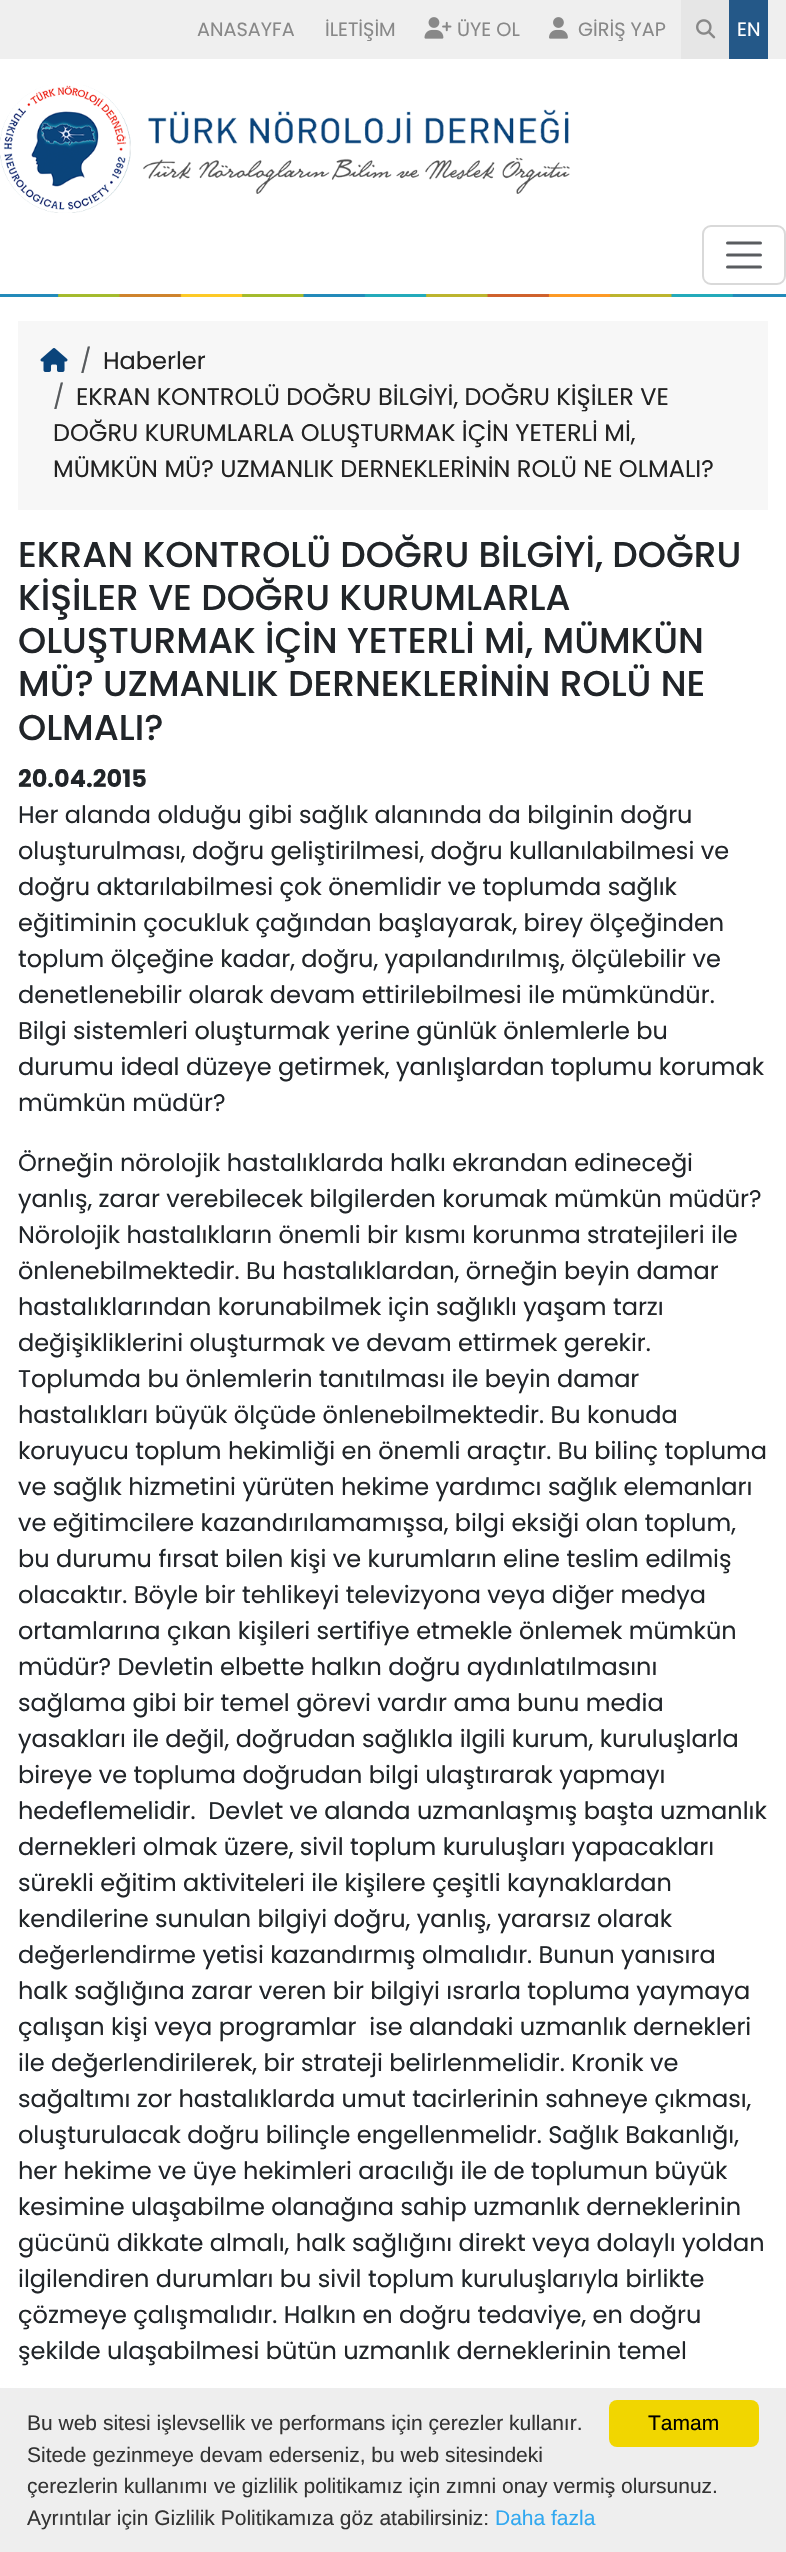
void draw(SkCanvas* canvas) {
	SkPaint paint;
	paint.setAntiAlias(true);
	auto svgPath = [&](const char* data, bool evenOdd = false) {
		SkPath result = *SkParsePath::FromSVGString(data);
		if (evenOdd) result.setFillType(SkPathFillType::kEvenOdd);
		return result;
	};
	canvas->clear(0xffffffff);
	paint.setColor(0xffefefef);
	canvas->drawRect(SkRect::MakeXYWH(0, 0, 786, 59), paint);
	SkFont f1(fontMgr->matchFamilyStyle("Poppins", SkFontStyle::Normal()), 19.25);
	f1.setSubpixel(true);
	paint.setColor(0xff888888);
	canvas->drawString("ANASAYFA", 197, 36, f1, paint);
	canvas->drawString("İLETİŞİM", 325, 36, f1, paint);
	canvas->drawImageRect(SkImages::DeferredFromEncodedData(SkData::MakeFromFileName("img1.png")), SkRect::MakeXYWH(424, 17, 28, 22), SkSamplingOptions());
	canvas->drawString("ÜYE OL", 457, 36, f1, paint);
	canvas->drawImageRect(SkImages::DeferredFromEncodedData(SkData::MakeFromFileName("img2.png")), SkRect::MakeXYWH(549, 17, 19, 22), SkSamplingOptions());
	canvas->drawString("GİRİŞ YAP", 578, 36, f1, paint);
	paint.setColor(0xffe6e6e6);
	canvas->drawRect(SkRect::MakeXYWH(681, 0, 48, 59), paint);
	canvas->drawImageRect(SkImages::DeferredFromEncodedData(SkData::MakeFromFileName("img3.png")), SkRect::MakeXYWH(696, 19, 20, 20), SkSamplingOptions());
	paint.setColor(0xff245888);
	canvas->drawRect(SkRect::MakeXYWH(729, 0, 39, 59), paint);
	paint.setColor(0xffffffff);
	canvas->drawString("EN", 737, 36, f1, paint);
	canvas->drawImageRect(SkImages::DeferredFromEncodedData(SkData::MakeFromFileName("img4.png")), SkRect::MakeXYWH(0, 294, 786, 3), SkSamplingOptions());
	canvas->drawImageRect(SkImages::DeferredFromEncodedData(SkData::MakeFromFileName("img5.png")), SkRect::MakeXYWH(0, 85, 570, 128), SkSamplingOptions());
	paint.setStroke(true);
	paint.setStrokeWidth(2);
	paint.setColor(0xffd9d9d9);
	canvas->drawRoundRect(SkRect::MakeXYWH(703, 226, 82, 58), 8, 8, paint);
	paint.setStrokeWidth(3);
	paint.setStrokeCap(SkPaint::kRound_Cap);
	paint.setColor(0xff595c5f);
	canvas->drawPath(svgPath("M727.5 243H760.5M727.5 255H760.5M727.5 267H760.5"), paint);
	paint.setStroke(false);
	paint.setColor(0xfff7f7f7);
	canvas->drawRect(SkRect::MakeXYWH(18, 321, 750, 189), paint);
	canvas->drawImageRect(SkImages::DeferredFromEncodedData(SkData::MakeFromFileName("img6.png")), SkRect::MakeXYWH(40, 348, 28, 24), SkSamplingOptions());
	SkFont f2(fontMgr->matchFamilyStyle("Poppins", SkFontStyle::Normal()), 24);
	f2.setSubpixel(true);
	paint.setColor(0xff575a5d);
	canvas->drawString("/", 80, 369, f2, paint);
	paint.setColor(0xff222222);
	canvas->drawString("Haberler", 103, 369, f2, paint);
	paint.setColor(0xff575a5d);
	canvas->drawString("/", 53, 405, f2, paint);
	paint.setColor(0xff222222);
	canvas->drawString("EKRAN KONTROLÜ DOĞRU BİLGİYİ, DOĞRU KİŞİLER VE", 76, 405, f2, paint);
	canvas->drawString("DOĞRU KURUMLARLA OLUŞTURMAK İÇİN YETERLİ Mİ,", 53, 441, f2, paint);
	canvas->drawString("MÜMKÜN MÜ? UZMANLIK DERNEKLERİNİN ROLÜ NE OLMALI?", 53, 477, f2, paint);
	SkFont f3(fontMgr->matchFamilyStyle("Poppins", SkFontStyle(500, SkFontStyle::kNormal_Width, SkFontStyle::kUpright_Slant)), 35.9);
	f3.setSubpixel(true);
	paint.setColor(0xff212529);
	canvas->drawString("EKRAN KONTROLÜ DOĞRU BİLGİYİ, DOĞRU", 18, 567, f3, paint);
	canvas->drawString("KİŞİLER VE DOĞRU KURUMLARLA", 18, 610, f3, paint);
	canvas->drawString("OLUŞTURMAK İÇİN YETERLİ Mİ, MÜMKÜN", 18, 653, f3, paint);
	canvas->drawString("MÜ? UZMANLIK DERNEKLERİNİN ROLÜ NE", 18, 696, f3, paint);
	canvas->drawString("OLMALI?", 18, 740, f3, paint);
	SkFont f4(fontMgr->matchFamilyStyle("Poppins", SkFontStyle::Bold()), 24);
	f4.setSubpixel(true);
	canvas->drawString("20.04.2015", 18, 787, f4, paint);
	canvas->drawString("Her alanda olduğu gibi sağlık alanında da bilginin doğru", 18, 823, f2, paint);
	canvas->drawString("oluşturulması, doğru geliştirilmesi, doğru kullanılabilmesi ve", 18, 859, f2, paint);
	canvas->drawString("doğru aktarılabilmesi çok önemlidir ve toplumda sağlık", 18, 895, f2, paint);
	canvas->drawString("eğitiminin çocukluk çağından başlayarak, birey ölçeğinden", 18, 931, f2, paint);
	canvas->drawString("toplum ölçeğine kadar, doğru, yapılandırılmış, ölçülebilir ve", 18, 967, f2, paint);
	canvas->drawString("denetlenebilir olarak devam ettirilebilmesi ile mümkündür.", 18, 1003, f2, paint);
	canvas->drawString("Bilgi sistemleri oluşturmak yerine günlük önlemlerle bu", 18, 1039, f2, paint);
	canvas->drawString("durumu ideal düzeye getirmek, yanlışlardan toplumu korumak", 18, 1075, f2, paint);
	canvas->drawString("mümkün müdür?", 18, 1111, f2, paint);
	canvas->drawString("Örneğin nörolojik hastalıklarda halkı ekrandan edineceği", 18, 1171, f2, paint);
	canvas->drawString("yanlış, zarar verebilecek bilgilerden korumak mümkün müdür?", 18, 1207, f2, paint);
	canvas->drawString("Nörolojik hastalıkların önemli bir kısmı korunma stratejileri ile", 18, 1243, f2, paint);
	canvas->drawString("önlenebilmektedir. Bu hastalıklardan, örneğin beyin damar", 18, 1279, f2, paint);
	canvas->drawString("hastalıklarından korunabilmek için sağlıklı yaşam tarzı", 18, 1315, f2, paint);
	canvas->drawString("değişikliklerini oluşturmak ve devam ettirmek gerekir.", 18, 1351, f2, paint);
	canvas->drawString("Toplumda bu önlemlerin tanıtılması ile beyin damar", 18, 1387, f2, paint);
	canvas->drawString("hastalıkları büyük ölçüde önlenebilmektedir. Bu konuda", 18, 1423, f2, paint);
	canvas->drawString("koruyucu toplum hekimliği en önemli araçtır. Bu bilinç topluma", 18, 1459, f2, paint);
	canvas->drawString("ve sağlık hizmetini yürüten hekime yardımcı sağlık elemanları", 18, 1495, f2, paint);
	canvas->drawString("ve eğitimcilere kazandırılamamışsa, bilgi eksiği olan toplum,", 18, 1531, f2, paint);
	canvas->drawString("bu durumu fırsat bilen kişi ve kurumların eline teslim edilmiş", 18, 1567, f2, paint);
	canvas->drawString("olacaktır. Böyle bir tehlikeyi televizyona veya diğer medya", 18, 1603, f2, paint);
	canvas->drawString("ortamlarına çıkan kişileri sertifiye etmekle önlemek mümkün", 18, 1639, f2, paint);
	canvas->drawString("müdür? Devletin elbette halkın doğru aydınlatılmasını", 18, 1675, f2, paint);
	canvas->drawString("sağlama gibi bir temel görevi vardır ama bunu media", 18, 1711, f2, paint);
	canvas->drawString("yasakları ile değil, doğrudan sağlıkla ilgili kurum, kuruluşlarla", 18, 1747, f2, paint);
	canvas->drawString("bireye ve topluma doğrudan bilgi ulaştırarak yapmayı", 18, 1783, f2, paint);
	canvas->drawString("hedeflemelidir.  Devlet ve alanda uzmanlaşmış başta uzmanlık", 18, 1819, f2, paint);
	canvas->drawString("dernekleri olmak üzere, sivil toplum kuruluşları yapacakları", 18, 1855, f2, paint);
	canvas->drawString("sürekli eğitim aktiviteleri ile kişilere çeşitli kaynaklardan", 18, 1891, f2, paint);
	canvas->drawString("kendilerine sunulan bilgiyi doğru, yanlış, yararsız olarak", 18, 1927, f2, paint);
	canvas->drawString("değerlendirme yetisi kazandırmış olmalıdır. Bunun yanısıra", 18, 1963, f2, paint);
	canvas->drawString("halk sağlığına zarar veren bir bilgiyi ısrarla topluma yaymaya", 18, 1999, f2, paint);
	canvas->drawString("çalışan kişi veya programlar  ise alandaki uzmanlık dernekleri", 18, 2035, f2, paint);
	canvas->drawString("ile değerlendirilerek, bir strateji belirlenmelidir. Kronik ve", 18, 2071, f2, paint);
	canvas->drawString("sağaltımı zor hastalıklarda umut tacirlerinin sahneye çıkması,", 18, 2107, f2, paint);
	canvas->drawString("oluşturulacak doğru bilinçle engellenmelidr. Sağlık Bakanlığı,", 18, 2143, f2, paint);
	canvas->drawString("her hekime ve üye hekimleri aracılığı ile de toplumun büyük", 18, 2179, f2, paint);
	canvas->drawString("kesimine ulaşabilme olanağına sahip uzmanlık derneklerinin", 18, 2215, f2, paint);
	canvas->drawString("gücünü dikkate almalı, halk sağlığını direkt veya dolaylı yoldan", 18, 2251, f2, paint);
	canvas->drawString("ilgilendiren durumları bu sivil toplum kuruluşlarıyla birlikte", 18, 2287, f2, paint);
	canvas->drawString("çözmeye çalışmalıdır. Halkın en doğru tedaviye, en doğru", 18, 2323, f2, paint);
	canvas->drawString("şekilde ulaşabilmesi bütün uzmanlık derneklerinin temel", 18, 2359, f2, paint);
	paint.setColor(0xffeeeeee);
	canvas->drawRect(SkRect::MakeXYWH(0, 2388, 786, 164), paint);
	SkFont f5(fontMgr->matchFamilyStyle("Liberation Sans", SkFontStyle::Normal()), 21);
	f5.setSubpixel(true);
	paint.setColor(0xff333333);
	canvas->drawString("Bu web sitesi işlevsellik ve performans için çerezler kullanır.", 27, 2430, f5, paint);
	canvas->drawString("Sitede gezinmeye devam ederseniz, bu web sitesindeki", 27, 2462, f5, paint);
	canvas->drawString("çerezlerin kullanımı ve gizlilik politikamız için zımni onay vermiş olursunuz.", 27, 2493, f5, paint);
	canvas->drawString("Ayrıntılar için Gizlilik Politikamıza göz atabilirsiniz:", 27, 2525, f5, paint);
	paint.setColor(0xff31a8f0);
	canvas->drawString("Daha fazla", 495, 2525, f5, paint);
	paint.setColor(0xfff1d600);
	canvas->drawRoundRect(SkRect::MakeXYWH(609, 2400, 150, 47), 8, 8, paint);
	paint.setColor(0xff000000);
	canvas->drawString("Tamam", 648, 2430, f5, paint);
}
